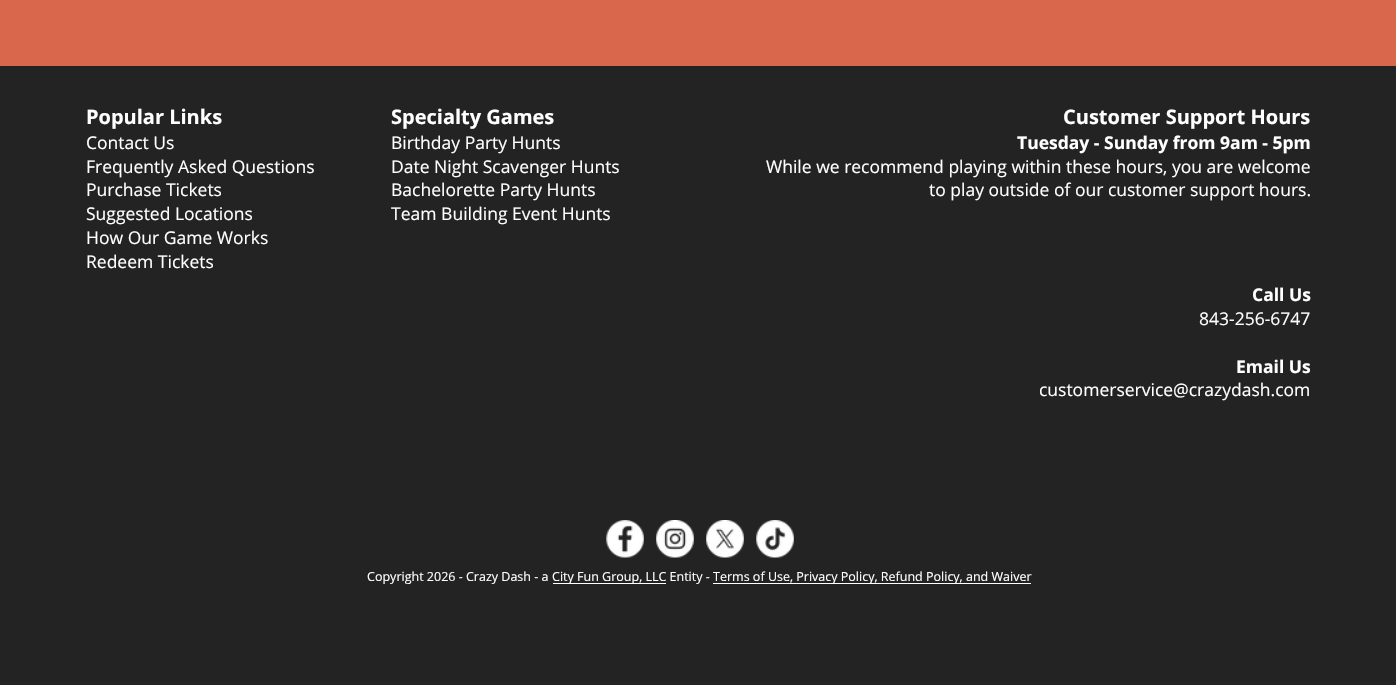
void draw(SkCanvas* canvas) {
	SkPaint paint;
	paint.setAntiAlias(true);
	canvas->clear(0xffd8674b);
	paint.setColor(0xff242323);
	canvas->drawRect(SkRect::MakeXYWH(0, 66, 1396, 619), paint);
	SkFont f1(fontMgr->matchFamilyStyle("Open Sans", SkFontStyle::Bold()), 20);
	f1.setSubpixel(true);
	paint.setColor(0xffffffff);
	canvas->drawString("Popular Links", 86, 124, f1, paint);
	SkFont f2(fontMgr->matchFamilyStyle("Open Sans", SkFontStyle::Normal()), 17.5);
	f2.setSubpixel(true);
	canvas->drawString("Contact Us", 86, 149, f2, paint);
	canvas->drawString("Frequently Asked Questions", 86, 173, f2, paint);
	canvas->drawString("Purchase Tickets", 86, 196, f2, paint);
	canvas->drawString("Suggested Locations", 86, 220, f2, paint);
	canvas->drawString("How Our Game Works", 86, 244, f2, paint);
	canvas->drawString("Redeem Tickets", 86, 268, f2, paint);
	canvas->drawString("Specialty Games", 391, 124, f1, paint);
	canvas->drawString("Birthday Party Hunts", 391, 149, f2, paint);
	canvas->drawString("Date Night Scavenger Hunts", 391, 173, f2, paint);
	canvas->drawString("Bachelorette Party Hunts", 391, 196, f2, paint);
	canvas->drawString("Team Building Event Hunts", 391, 220, f2, paint);
	canvas->drawString("Customer Support Hours", 1063, 124, f1, paint);
	SkFont f3(fontMgr->matchFamilyStyle("Open Sans", SkFontStyle::Bold()), 17.5);
	f3.setSubpixel(true);
	canvas->drawString("Tuesday - Sunday from 9am - 5pm", 1017, 149, f3, paint);
	canvas->drawString("While we recommend playing within these hours, you are welcome", 766, 173, f2, paint);
	canvas->drawString("to play outside of our customer support hours.", 929, 196, f2, paint);
	canvas->drawString("Call Us", 1252, 301, f3, paint);
	canvas->drawString("843-256-6747", 1199, 325, f2, paint);
	canvas->drawString("Email Us", 1236, 373, f3, paint);
	canvas->drawString("customerservice@crazydash.com", 1039, 396, f2, paint);
	canvas->drawImageRect(SkImages::DeferredFromEncodedData(SkData::MakeFromFileName("img1.png")), SkRect::MakeXYWH(606, 520, 38, 38), SkSamplingOptions());
	canvas->drawImageRect(SkImages::DeferredFromEncodedData(SkData::MakeFromFileName("img2.png")), SkRect::MakeXYWH(656, 520, 38, 38), SkSamplingOptions());
	canvas->drawImageRect(SkImages::DeferredFromEncodedData(SkData::MakeFromFileName("img3.png")), SkRect::MakeXYWH(706, 520, 38, 38), SkSamplingOptions());
	canvas->drawImageRect(SkImages::DeferredFromEncodedData(SkData::MakeFromFileName("img4.png")), SkRect::MakeXYWH(756, 520, 38, 38), SkSamplingOptions());
	SkFont f4(fontMgr->matchFamilyStyle("Open Sans", SkFontStyle::Normal()), 12.5);
	f4.setSubpixel(true);
	canvas->drawString("Copyright 2026 - Crazy Dash - a", 367, 581, f4, paint);
	canvas->drawRect(SkRect::MakeXYWH(553, 583, 113, 1), paint);
	canvas->drawString("City Fun Group, LLC Entity -", 552, 581, f4, paint);
	canvas->drawRect(SkRect::MakeXYWH(713, 583, 318, 1), paint);
	canvas->drawString("Terms of Use, Privacy Policy, Refund Policy, and Waiver", 713, 581, f4, paint);
}
